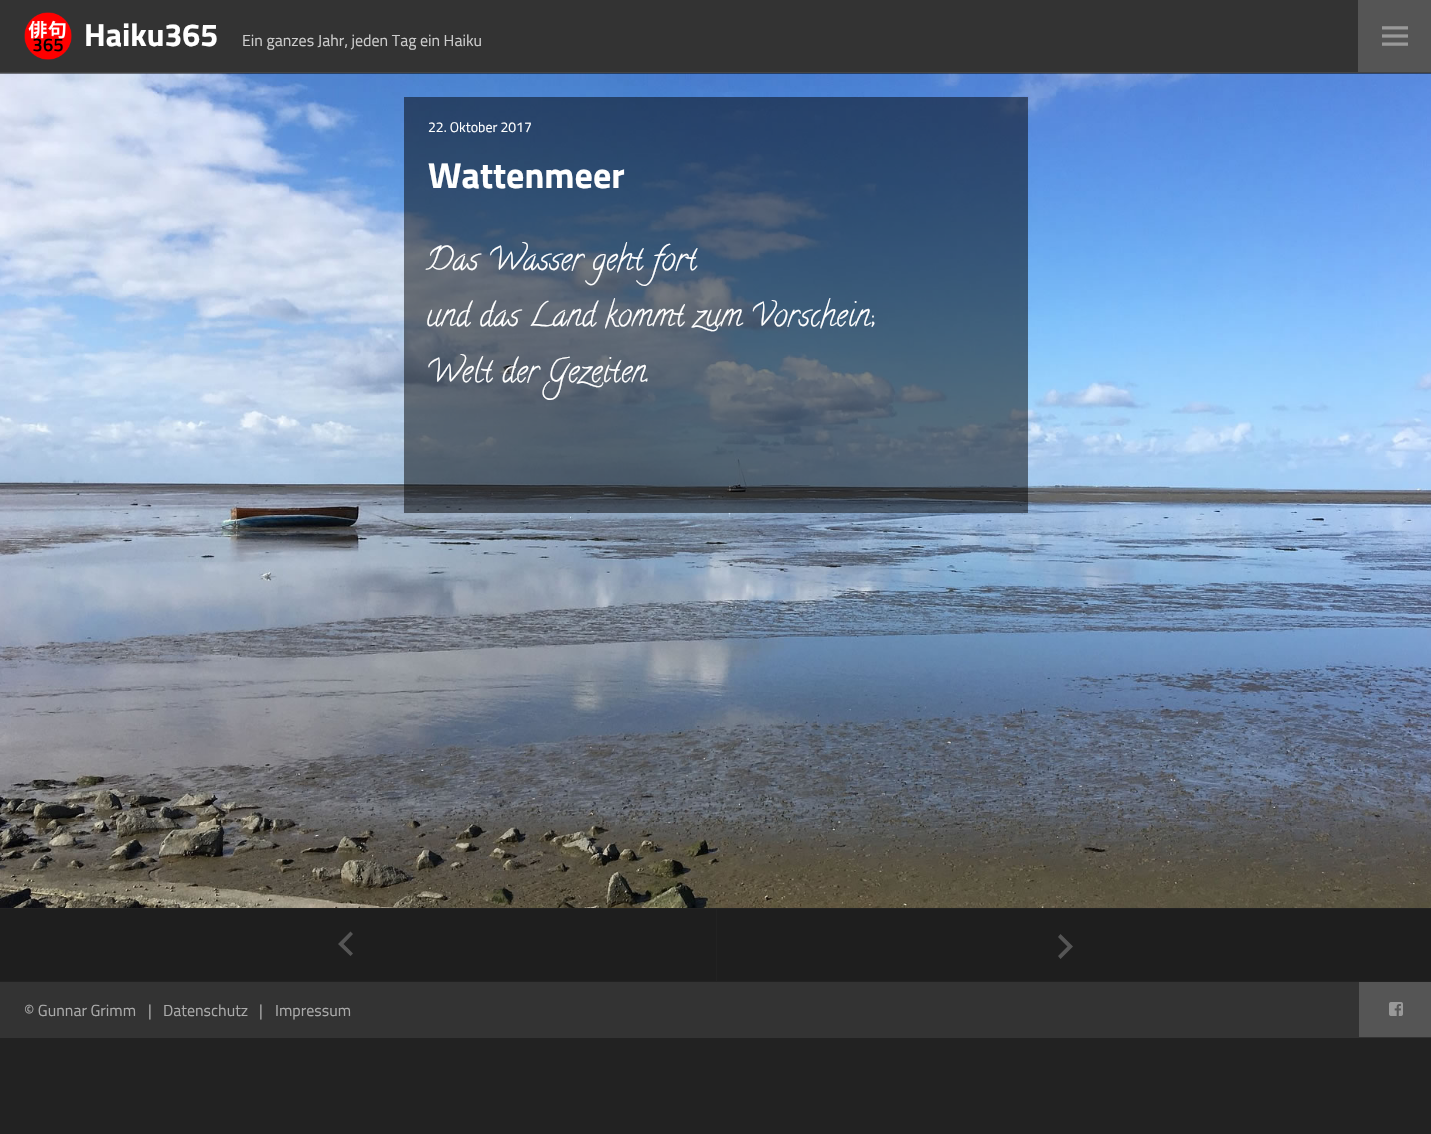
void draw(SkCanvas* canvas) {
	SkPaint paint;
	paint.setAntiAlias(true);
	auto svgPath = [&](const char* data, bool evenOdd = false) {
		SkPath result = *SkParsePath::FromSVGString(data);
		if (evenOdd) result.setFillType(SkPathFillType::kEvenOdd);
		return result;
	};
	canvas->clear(0xff222222);
	paint.setColor(0xff333333);
	canvas->drawRect(SkRect::MakeXYWH(0, 0, 1358, 72), paint);
	paint.setColor(0xff444444);
	canvas->drawRect(SkRect::MakeXYWH(0, 72, 1431, 1), paint);
	canvas->drawImageRect(SkImages::DeferredFromEncodedData(SkData::MakeFromFileName("img1.png")), SkRect::MakeXYWH(24, 12, 48, 48), SkSamplingOptions());
	SkFont f1(fontMgr->matchFamilyStyle("Titillium Web", SkFontStyle::Bold()), 32);
	f1.setSubpixel(true);
	paint.setColor(0xffffffff);
	canvas->drawString("Haiku365", 84, 46, f1, paint);
	SkFont f2(fontMgr->matchFamilyStyle("Titillium Web", SkFontStyle::Normal()), 16);
	f2.setSubpixel(true);
	paint.setColor(0xffcccccc);
	canvas->drawString("Ein ganzes Jahr, jeden Tag ein Haiku", 242, 46, f2, paint);
	paint.setColor(0xff555555);
	canvas->drawRect(SkRect::MakeXYWH(1358, 0, 73, 72), paint);
	canvas->drawImageRect(SkImages::DeferredFromEncodedData(SkData::MakeFromFileName("img2.png")), SkRect::MakeXYWH(1382, 26, 26, 20), SkSamplingOptions());
	paint.setColor(0xff000000);
	canvas->drawRect(SkRect::MakeXYWH(0, 73, 1431, 1), paint);
	canvas->drawImageRect(SkImages::DeferredFromEncodedData(SkData::MakeFromFileName("img3.png")), SkRect::MakeXYWH(0, 73, 1431, 835), SkSamplingOptions());
	paint.setColor(0x80000000);
	canvas->drawRect(SkRect::MakeXYWH(404, 97, 624, 416), paint);
	SkFont f3(fontMgr->matchFamilyStyle("Titillium Web", SkFontStyle::Normal()), 14);
	f3.setSubpixel(true);
	paint.setColor(0xffffffff);
	canvas->drawString("22. Oktober 2017", 428, 132, f3, paint);
	SkFont f4(fontMgr->matchFamilyStyle("Titillium Web", SkFontStyle::Bold()), 36);
	f4.setSubpixel(true);
	canvas->drawString("Wattenmeer", 428, 188, f4, paint);
	SkFont f5(fontMgr->matchFamilyStyle("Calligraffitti", SkFontStyle::Normal()), 32);
	f5.setSubpixel(true);
	canvas->drawString("Das Wasser geht fort", 426, 269, f5, paint);
	canvas->drawString("und das Land kommt zum Vorschein;", 426, 325, f5, paint);
	canvas->drawString("Welt der Gezeiten.", 426, 381, f5, paint);
	paint.setColor(0xff1e1e1e);
	canvas->drawRect(SkRect::MakeXYWH(0, 909, 716, 72), paint);
	paint.setColor(0xff555555);
	canvas->drawPath(svgPath("M353 953.5L350.5 956L338 944L350.5 931.5L353 934L343.5 944Z"), paint);
	paint.setColor(0xff1e1e1e);
	canvas->drawRect(SkRect::MakeXYWH(717, 909, 714, 72), paint);
	paint.setColor(0xff555555);
	canvas->drawPath(svgPath("M1058 937L1060.5 934L1073 946.5L1060.5 959L1058 956L1067.5 946.5Z"), paint);
	paint.setColor(0xff333333);
	canvas->drawRect(SkRect::MakeXYWH(0, 982, 1431, 56), paint);
	paint.setColor(0xffaaaaaa);
	canvas->drawString("© Gunnar Grimm", 24, 1016, f2, paint);
	canvas->drawString("|", 148, 1016, f2, paint);
	canvas->drawString("Datenschutz", 163, 1016, f2, paint);
	canvas->drawString("|", 259, 1016, f2, paint);
	canvas->drawString("Impressum", 275, 1016, f2, paint);
	paint.setColor(0xff555555);
	canvas->drawRect(SkRect::MakeXYWH(1359, 982, 72, 55), paint);
	canvas->drawImageRect(SkImages::DeferredFromEncodedData(SkData::MakeFromFileName("img4.png")), SkRect::MakeXYWH(1389, 1002, 14, 14), SkSamplingOptions());
}
